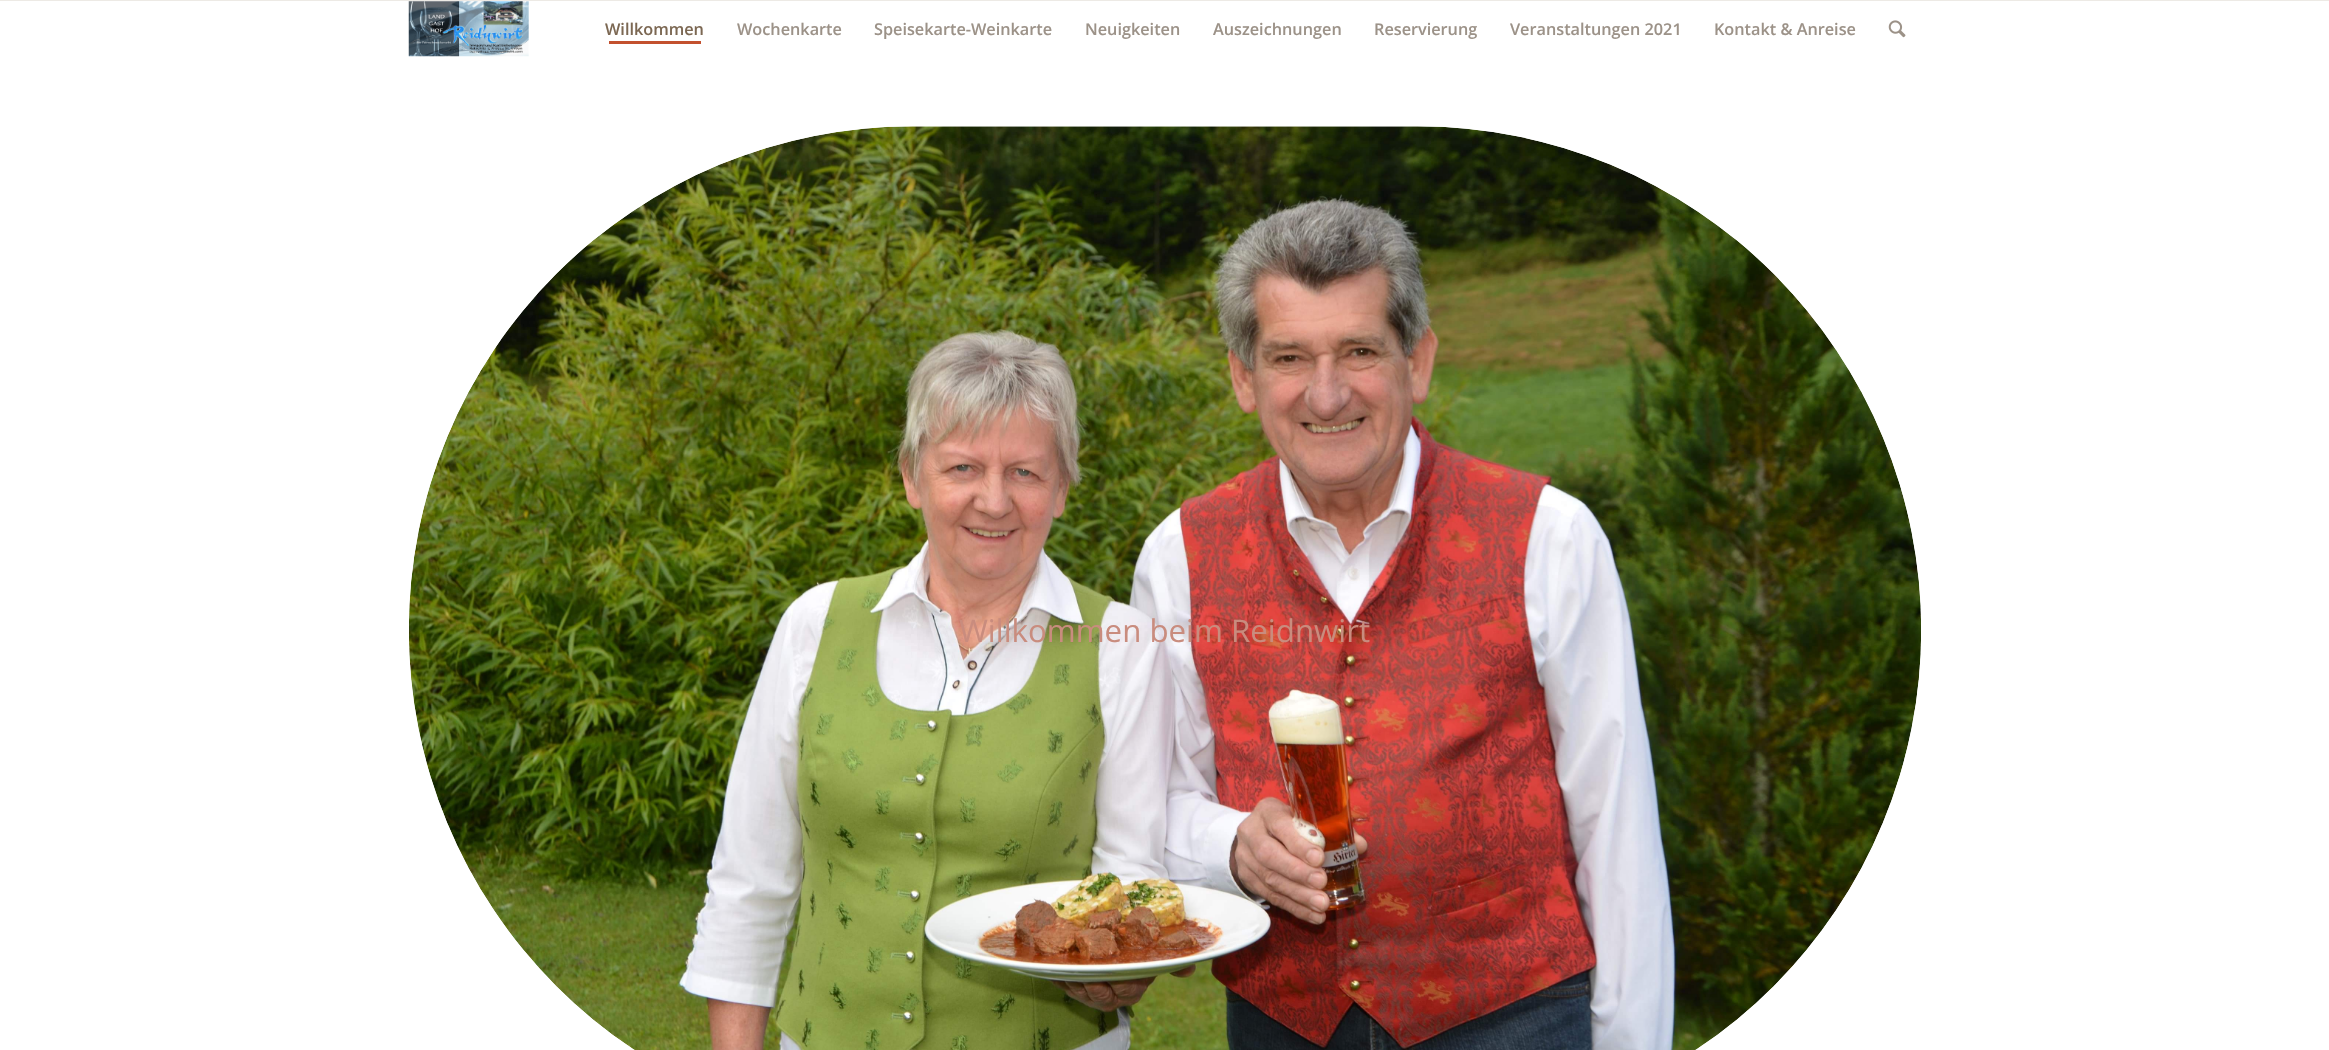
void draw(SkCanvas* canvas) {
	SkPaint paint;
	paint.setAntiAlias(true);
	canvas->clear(0xffffffff);
	canvas->drawImageRect(SkImages::DeferredFromEncodedData(SkData::MakeFromFileName("img1.png")), SkRect::MakeXYWH(408, 1, 121, 56), SkSamplingOptions());
	SkFont f1(fontMgr->matchFamilyStyle("Open Sans", SkFontStyle(600, SkFontStyle::kNormal_Width, SkFontStyle::kUpright_Slant)), 16.25);
	f1.setSubpixel(true);
	paint.setColor(0xff7c6853);
	canvas->drawString("Willkommen", 605, 35, f1, paint);
	paint.setColor(0xffc3512f);
	canvas->drawRect(SkRect::MakeXYWH(609, 41, 92, 3), paint);
	paint.setColor(0xff9c9288);
	canvas->drawString("Wochenkarte", 737, 35, f1, paint);
	canvas->drawString("Speisekarte-Weinkarte", 874, 35, f1, paint);
	canvas->drawString("Neuigkeiten", 1085, 35, f1, paint);
	canvas->drawString("Auszeichnungen", 1213, 35, f1, paint);
	canvas->drawString("Reservierung", 1374, 35, f1, paint);
	canvas->drawString("Veranstaltungen 2021", 1510, 35, f1, paint);
	canvas->drawString("Kontakt & Anreise", 1714, 35, f1, paint);
	canvas->drawImageRect(SkImages::DeferredFromEncodedData(SkData::MakeFromFileName("img2.png")), SkRect::MakeXYWH(1888, 20, 18, 18), SkSamplingOptions());
	paint.setColor(0xffedeae5);
	canvas->drawRect(SkRect::MakeXYWH(0, 0, 2329, 1), paint);
	canvas->drawImageRect(SkImages::DeferredFromEncodedData(SkData::MakeFromFileName("img3.png")), SkRect::MakeXYWH(409, 126, 1512, 924), SkSamplingOptions());
	SkFont f2(fontMgr->matchFamilyStyle("Open Sans", SkFontStyle::Normal()), 31.25);
	f2.setSubpixel(true);
	paint.setColor(0xffc98c7e);
	canvas->drawString("Willkommen beim Reidnwirt", 959, 642, f2, paint);
}
